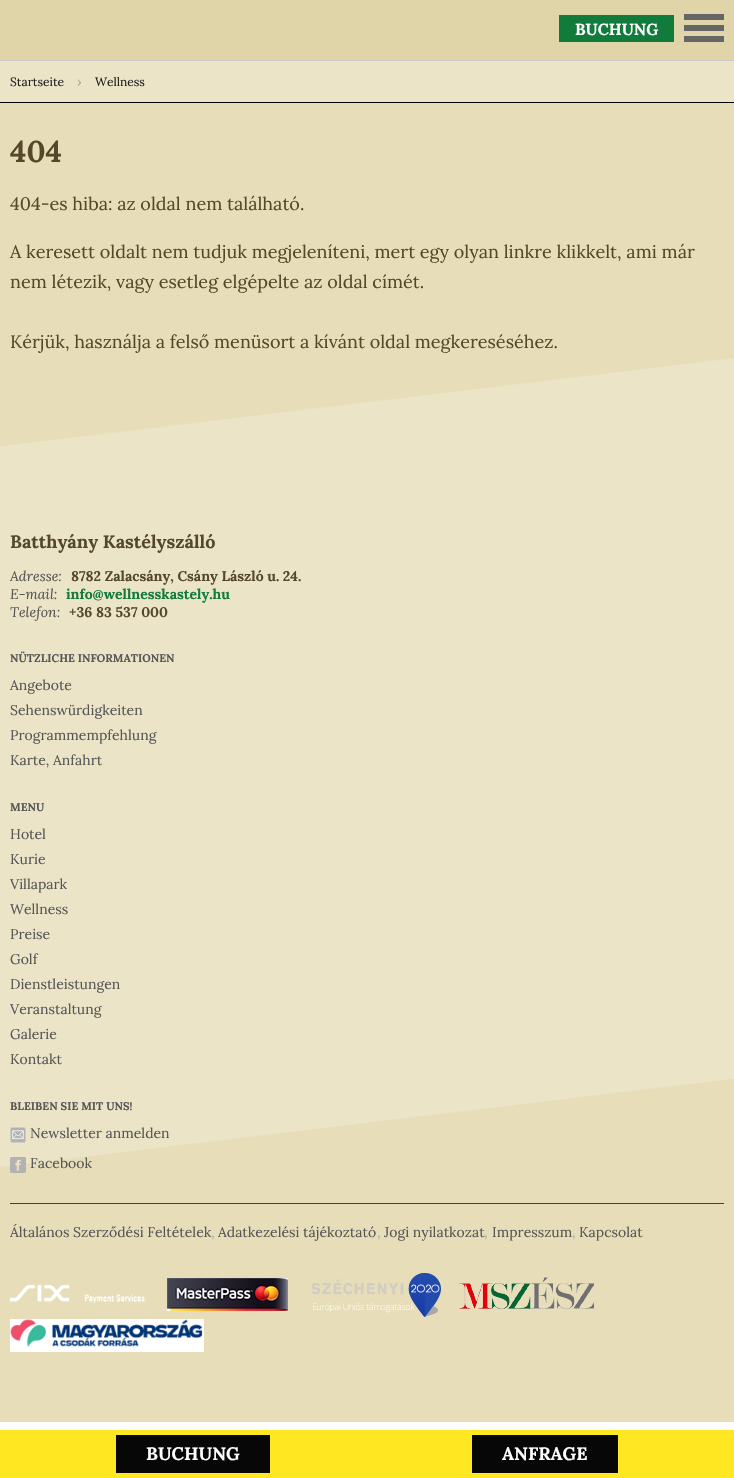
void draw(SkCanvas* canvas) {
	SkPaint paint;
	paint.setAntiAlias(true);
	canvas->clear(0xffffffff);
	paint.setColor(0xffe0d5a8);
	canvas->drawRect(SkRect::MakeXYWH(0, 0, 734, 60), paint);
	paint.setColor(0xffcccccc);
	canvas->drawRect(SkRect::MakeXYWH(0, 60, 734, 1), paint);
	paint.setColor(0xff117b3b);
	canvas->drawRect(SkRect::MakeXYWH(559, 15, 115, 27), paint);
	SkFont f1(fontMgr->matchFamilyStyle("Lora", SkFontStyle::Bold()), 16);
	f1.setSubpixel(true);
	paint.setColor(0xffffffff);
	canvas->drawString("BUCHUNG", 575, 35, f1, paint);
	paint.setColor(0xff666666);
	canvas->drawRect(SkRect::MakeXYWH(684, 25, 40, 6), paint);
	canvas->drawRect(SkRect::MakeXYWH(684, 14, 40, 6), paint);
	canvas->drawRect(SkRect::MakeXYWH(684, 36, 40, 6), paint);
	paint.setColor(0xffebe4c7);
	canvas->drawRect(SkRect::MakeXYWH(0, 61, 734, 41), paint);
	paint.setColor(0xff000000);
	canvas->drawRect(SkRect::MakeXYWH(0, 102, 734, 1), paint);
	SkFont f2(fontMgr->matchFamilyStyle("Lora", SkFontStyle::Normal()), 12);
	f2.setSubpixel(true);
	paint.setColor(0xff1e1e1e);
	canvas->drawString("Startseite", 10, 86, f2, paint);
	paint.setColor(0xff999999);
	canvas->drawString("›", 77, 86, f2, paint);
	paint.setColor(0xff1e1e1e);
	canvas->drawString("Wellness", 95, 86, f2, paint);
	paint.setColor(0xffebe4c7);
	canvas->drawRect(SkRect::MakeXYWH(0, 358, 734, 809), paint);
	canvas->drawImageRect(SkImages::DeferredFromEncodedData(SkData::MakeFromFileName("img1.png")), SkRect::MakeXYWH(0, 103, 734, 344), SkSamplingOptions());
	SkFont f3(fontMgr->matchFamilyStyle("Lora", SkFontStyle::Bold()), 30);
	f3.setSubpixel(true);
	paint.setColor(0xff55482a);
	canvas->drawString("404", 10, 162, f3, paint);
	SkFont f4(fontMgr->matchFamilyStyle("Lora", SkFontStyle::Normal()), 18);
	f4.setSubpixel(true);
	canvas->drawString("404-es hiba: az oldal nem található.", 10, 210, f4, paint);
	canvas->drawString("A keresett oldalt nem tudjuk megjeleníteni, mert egy olyan linkre klikkelt, ami már", 10, 258, f4, paint);
	canvas->drawString("nem létezik, vagy esetleg elgépelte az oldal címét.", 10, 288, f4, paint);
	canvas->drawString("Kérjük, használja a felső menüsort a kívánt oldal megkereséséhez.", 10, 348, f4, paint);
	canvas->drawImageRect(SkImages::DeferredFromEncodedData(SkData::MakeFromFileName("img2.png")), SkRect::MakeXYWH(0, 1078, 734, 344), SkSamplingOptions());
	SkFont f5(fontMgr->matchFamilyStyle("Lora", SkFontStyle::Bold()), 18);
	f5.setSubpixel(true);
	canvas->drawString("Batthyány Kastélyszálló", 10, 548, f5, paint);
	SkFont f6(fontMgr->matchFamilyStyle("Lora", SkFontStyle::Italic()), 14);
	f6.setSubpixel(true);
	paint.setColor(0xff555555);
	canvas->drawString("Adresse:", 10, 581, f6, paint);
	SkFont f7(fontMgr->matchFamilyStyle("Lora", SkFontStyle::Bold()), 14);
	f7.setSubpixel(true);
	paint.setColor(0xff55482a);
	canvas->drawString("8782 Zalacsány, Csány László u. 24.", 71, 581, f7, paint);
	paint.setColor(0xff555555);
	canvas->drawString("E-mail:", 10, 599, f6, paint);
	paint.setColor(0xff117b3b);
	canvas->drawString("info@wellnesskastely.hu", 66, 599, f7, paint);
	paint.setColor(0xff555555);
	canvas->drawString("Telefon:", 10, 617, f6, paint);
	paint.setColor(0xff55482a);
	canvas->drawString("+36 83 537 000", 69, 617, f7, paint);
	SkFont f8(fontMgr->matchFamilyStyle("Lora", SkFontStyle::Bold()), 11);
	f8.setSubpixel(true);
	paint.setColor(0xff555555);
	canvas->drawString("NÜTZLICHE INFORMATIONEN", 10, 662, f8, paint);
	SkFont f9(fontMgr->matchFamilyStyle("Lora", SkFontStyle::Normal()), 14);
	f9.setSubpixel(true);
	canvas->drawString("Angebote", 10, 690, f9, paint);
	canvas->drawString("Sehenswürdigkeiten", 10, 715, f9, paint);
	canvas->drawString("Programmempfehlung", 10, 740, f9, paint);
	canvas->drawString("Karte, Anfahrt", 10, 765, f9, paint);
	canvas->drawString("MENU", 10, 811, f8, paint);
	canvas->drawString("Hotel", 10, 839, f9, paint);
	canvas->drawString("Kurie", 10, 864, f9, paint);
	canvas->drawString("Villapark", 10, 889, f9, paint);
	canvas->drawString("Wellness", 10, 914, f9, paint);
	canvas->drawString("Preise", 10, 939, f9, paint);
	canvas->drawString("Golf", 10, 964, f9, paint);
	canvas->drawString("Dienstleistungen", 10, 989, f9, paint);
	canvas->drawString("Veranstaltung", 10, 1014, f9, paint);
	canvas->drawString("Galerie", 10, 1039, f9, paint);
	canvas->drawString("Kontakt", 10, 1064, f9, paint);
	canvas->drawString("BLEIBEN SIE MIT UNS!", 10, 1110, f8, paint);
	canvas->drawImageRect(SkImages::DeferredFromEncodedData(SkData::MakeFromFileName("img3.png")), SkRect::MakeXYWH(10, 1127, 16, 16), SkSamplingOptions());
	canvas->drawString("Newsletter anmelden", 30, 1138, f9, paint);
	canvas->drawImageRect(SkImages::DeferredFromEncodedData(SkData::MakeFromFileName("img4.png")), SkRect::MakeXYWH(10, 1157, 16, 16), SkSamplingOptions());
	canvas->drawString("Facebook", 30, 1168, f9, paint);
	paint.setColor(0xff424141);
	canvas->drawRect(SkRect::MakeXYWH(10, 1203, 714, 1), paint);
	paint.setColor(0xff555555);
	canvas->drawString("Általános Szerződési Feltételek", 10, 1237, f9, paint);
	paint.setColor(0xffa9a9a9);
	canvas->drawString(",", 211, 1237, f9, paint);
	paint.setColor(0xff555555);
	canvas->drawString("Adatkezelési tájékoztató", 218, 1237, f9, paint);
	paint.setColor(0xffa9a9a9);
	canvas->drawString(",", 377, 1237, f9, paint);
	paint.setColor(0xff555555);
	canvas->drawString("Jogi nyilatkozat", 384, 1237, f9, paint);
	paint.setColor(0xffa9a9a9);
	canvas->drawString(",", 484, 1237, f9, paint);
	paint.setColor(0xff555555);
	canvas->drawString("Impresszum", 492, 1237, f9, paint);
	paint.setColor(0xffa9a9a9);
	canvas->drawString(",", 572, 1237, f9, paint);
	paint.setColor(0xff555555);
	canvas->drawString("Kapcsolat", 579, 1237, f9, paint);
	canvas->drawImageRect(SkImages::DeferredFromEncodedData(SkData::MakeFromFileName("img5.png")), SkRect::MakeXYWH(10, 1285, 135, 18), SkSamplingOptions());
	canvas->drawImageRect(SkImages::DeferredFromEncodedData(SkData::MakeFromFileName("img6.png")), SkRect::MakeXYWH(167, 1278, 121, 33), SkSamplingOptions());
	canvas->drawImageRect(SkImages::DeferredFromEncodedData(SkData::MakeFromFileName("img7.png")), SkRect::MakeXYWH(311, 1273, 130, 44), SkSamplingOptions());
	canvas->drawImageRect(SkImages::DeferredFromEncodedData(SkData::MakeFromFileName("img8.png")), SkRect::MakeXYWH(459, 1277, 135, 33), SkSamplingOptions());
	canvas->drawImageRect(SkImages::DeferredFromEncodedData(SkData::MakeFromFileName("img9.png")), SkRect::MakeXYWH(10, 1319, 194, 33), SkSamplingOptions());
	paint.setColor(0xffffe721);
	canvas->drawRect(SkRect::MakeXYWH(0, 1430, 734, 48), paint);
	paint.setColor(0xff070707);
	canvas->drawRect(SkRect::MakeXYWH(116, 1435, 154, 38), paint);
	paint.setColor(0xffffffff);
	canvas->drawString("BUCHUNG", 146, 1460, f5, paint);
	paint.setColor(0xff070707);
	canvas->drawRect(SkRect::MakeXYWH(472, 1435, 146, 38), paint);
	paint.setColor(0xffffffff);
	canvas->drawString("ANFRAGE", 502, 1460, f5, paint);
}
